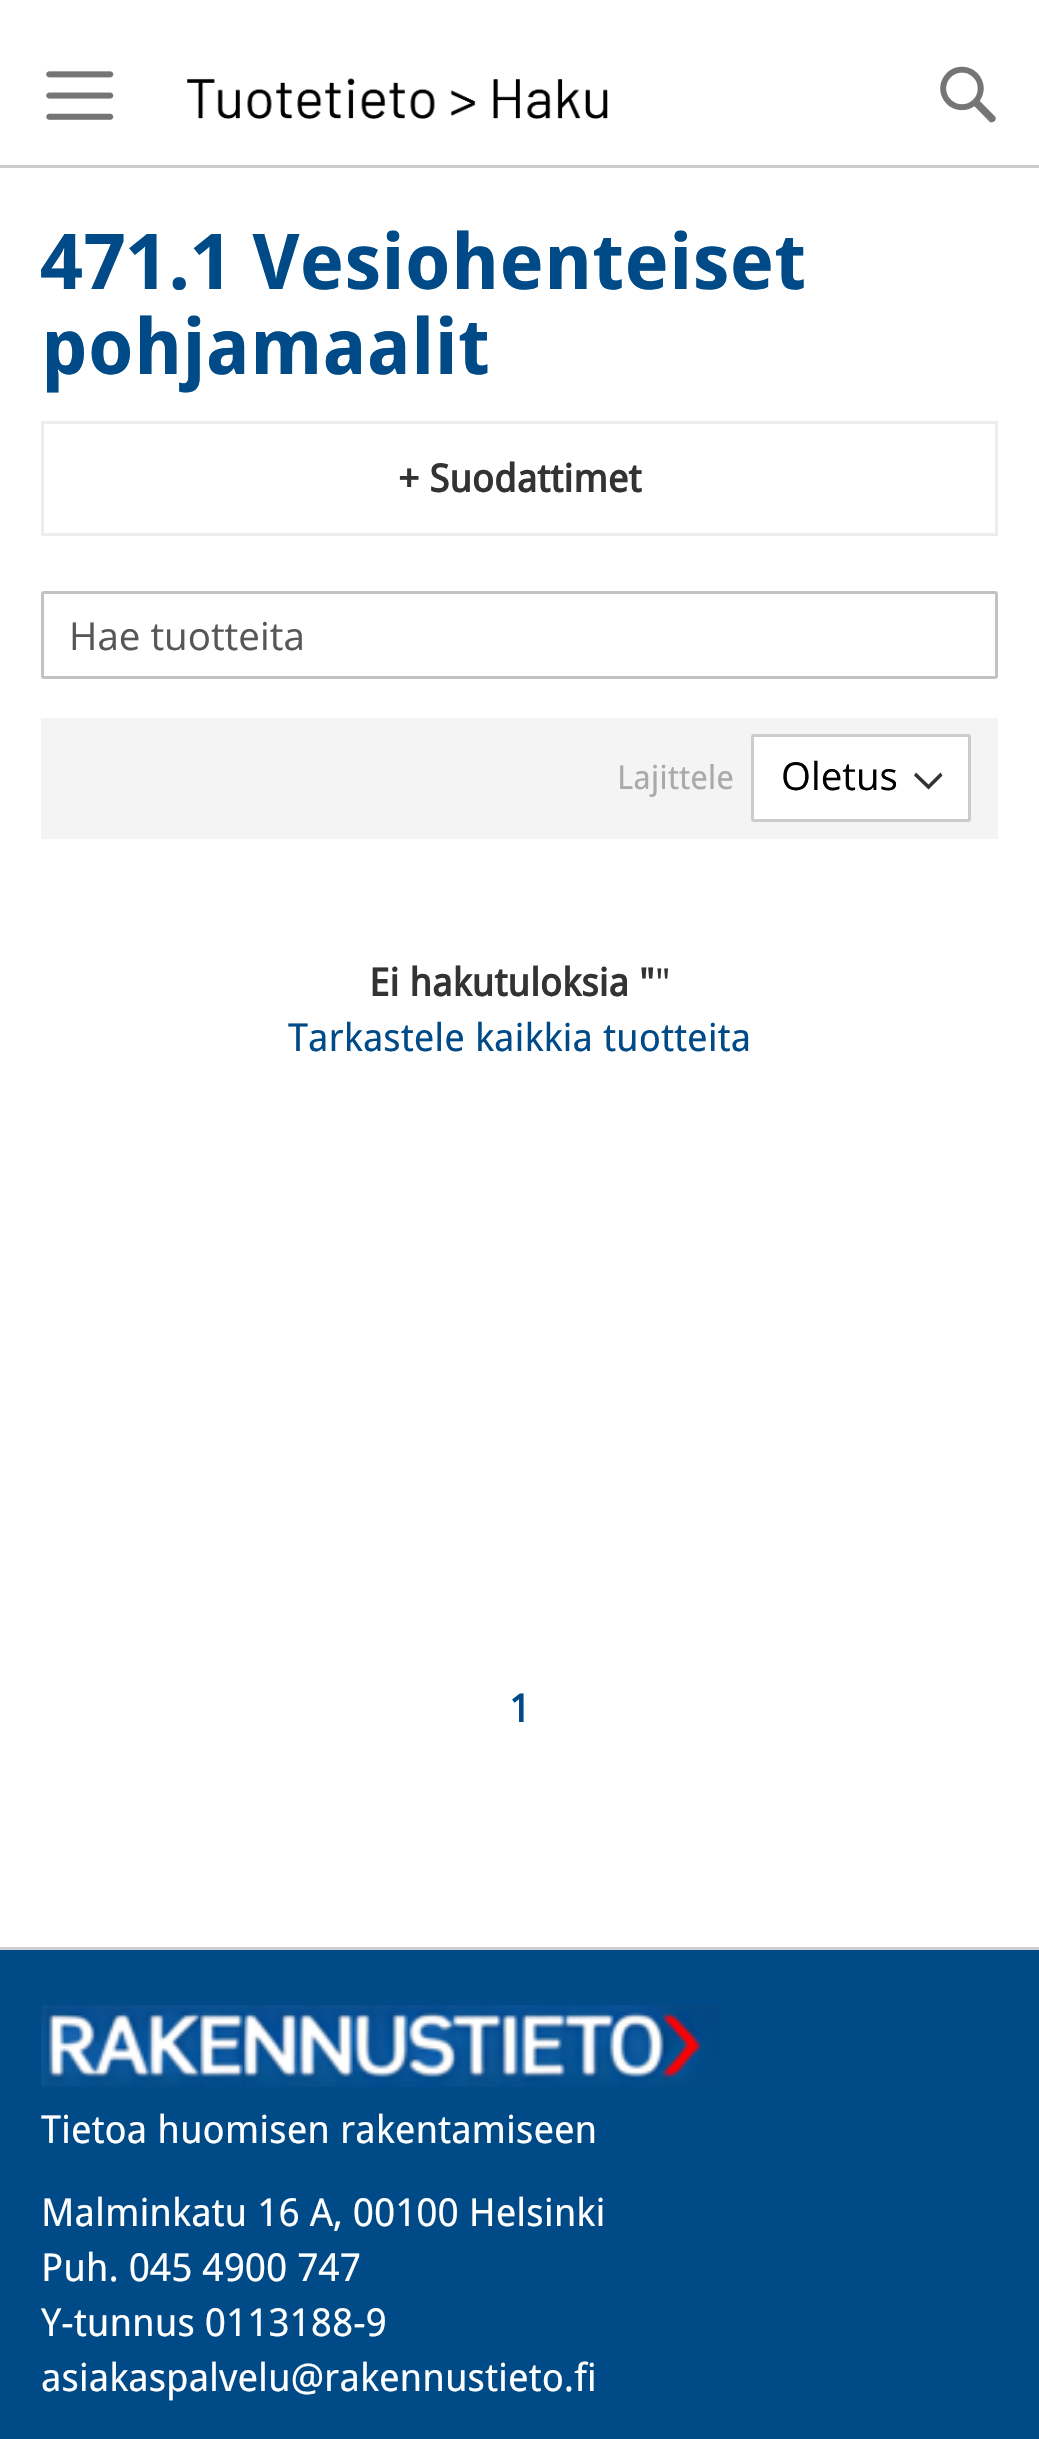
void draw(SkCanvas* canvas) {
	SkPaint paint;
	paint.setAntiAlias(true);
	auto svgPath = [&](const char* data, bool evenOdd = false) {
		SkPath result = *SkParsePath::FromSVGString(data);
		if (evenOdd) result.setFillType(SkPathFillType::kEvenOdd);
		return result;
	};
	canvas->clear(0xffffffff);
	paint.setColor(0xffcccccc);
	canvas->drawRect(SkRect::MakeXYWH(0, 165, 1039, 3), paint);
	canvas->drawImageRect(SkImages::DeferredFromEncodedData(SkData::MakeFromFileName("img1.png")), SkRect::MakeXYWH(46, 71, 68, 49), SkSamplingOptions());
	canvas->drawImageRect(SkImages::DeferredFromEncodedData(SkData::MakeFromFileName("img2.png")), SkRect::MakeXYWH(187, 78, 421, 41), SkSamplingOptions());
	canvas->drawImageRect(SkImages::DeferredFromEncodedData(SkData::MakeFromFileName("img3.png")), SkRect::MakeXYWH(940, 66, 56, 57), SkSamplingOptions());
	SkFont f1(fontMgr->matchFamilyStyle("Droid Sans", SkFontStyle::Bold()), 77);
	f1.setSubpixel(true);
	paint.setColor(0xff004b87);
	canvas->drawString("471.1 Vesiohenteiset", 41, 289, f1, paint);
	canvas->drawString("pohjamaalit", 41, 374, f1, paint);
	paint.setStroke(true);
	paint.setStrokeWidth(3);
	paint.setColor(0xffededed);
	canvas->drawRect(SkRect::MakeXYWH(42.5, 422.5, 954, 112), paint);
	SkFont f2(fontMgr->matchFamilyStyle("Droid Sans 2", SkFontStyle::Bold()), 38.5);
	f2.setSubpixel(true);
	paint.setStroke(false);
	paint.setColor(0xff333333);
	canvas->drawString("+ Suodattimet", 398, 492, f2, paint);
	paint.setStroke(true);
	paint.setColor(0xffc2c2c2);
	canvas->drawRoundRect(SkRect::MakeXYWH(42.5, 592.5, 954, 85), 1.5, 1.5, paint);
	SkFont f3(fontMgr->matchFamilyStyle("Open Sans", SkFontStyle::Normal()), 38.5);
	f3.setSubpixel(true);
	paint.setStroke(false);
	paint.setColor(0xff575757);
	canvas->drawString("Hae tuotteita", 69, 650, f3, paint);
	paint.setColor(0xfff4f4f4);
	canvas->drawRect(SkRect::MakeXYWH(41, 718, 957, 121), paint);
	SkFont f4(fontMgr->matchFamilyStyle("Droid Sans", SkFontStyle::Normal()), 33);
	f4.setSubpixel(true);
	paint.setColor(0xffaaaaaa);
	canvas->drawString("Lajittele", 617, 789, f4, paint);
	paint.setColor(0xffffffff);
	canvas->drawRect(SkRect::MakeXYWH(754, 737, 214, 82), paint);
	paint.setColor(0xff333333);
	canvas->drawPath(svgPath("M928.5 789.5L942.5 775.5L940.5 772.5L928.5 784.5L916 772.5L914 775.5Z", true), paint);
	paint.setStroke(true);
	paint.setColor(0xffcccccc);
	canvas->drawRoundRect(SkRect::MakeXYWH(752.5, 735.5, 217, 85), 1.5, 1.5, paint);
	paint.setStroke(false);
	paint.setColor(0xff000000);
	canvas->drawString("Oletus", 781, 790, f3, paint);
	paint.setColor(0xff333333);
	canvas->drawString("Ei hakutuloksia \"", 369, 996, f2, paint);
	SkFont f5(fontMgr->matchFamilyStyle("Droid Sans", SkFontStyle::Normal()), 38.5);
	f5.setSubpixel(true);
	canvas->drawString("\"", 655, 996, f5, paint);
	paint.setColor(0xff004b87);
	canvas->drawString("Tarkastele kaikkia tuotteita", 288, 1051, f5, paint);
	canvas->drawString("1", 509, 1722, f2, paint);
	canvas->drawRect(SkRect::MakeXYWH(0, 1950, 1039, 489), paint);
	paint.setColor(0xffcecece);
	canvas->drawRect(SkRect::MakeXYWH(0, 1947, 1039, 3), paint);
	canvas->drawImageRect(SkImages::DeferredFromEncodedData(SkData::MakeFromFileName("img4.png")), SkRect::MakeXYWH(41, 2005, 679, 82), SkSamplingOptions());
	paint.setColor(0xffffffff);
	canvas->drawString("Tietoa huomisen rakentamiseen", 41, 2143, f5, paint);
	canvas->drawString("Malminkatu 16 A, 00100 Helsinki", 41, 2226, f5, paint);
	canvas->drawString("Puh. 045 4900 747", 41, 2281, f5, paint);
	canvas->drawString("Y-tunnus 0113188-9", 41, 2336, f5, paint);
	canvas->drawString("asiakaspalvelu@rakennustieto.fi", 41, 2391, f5, paint);
}
